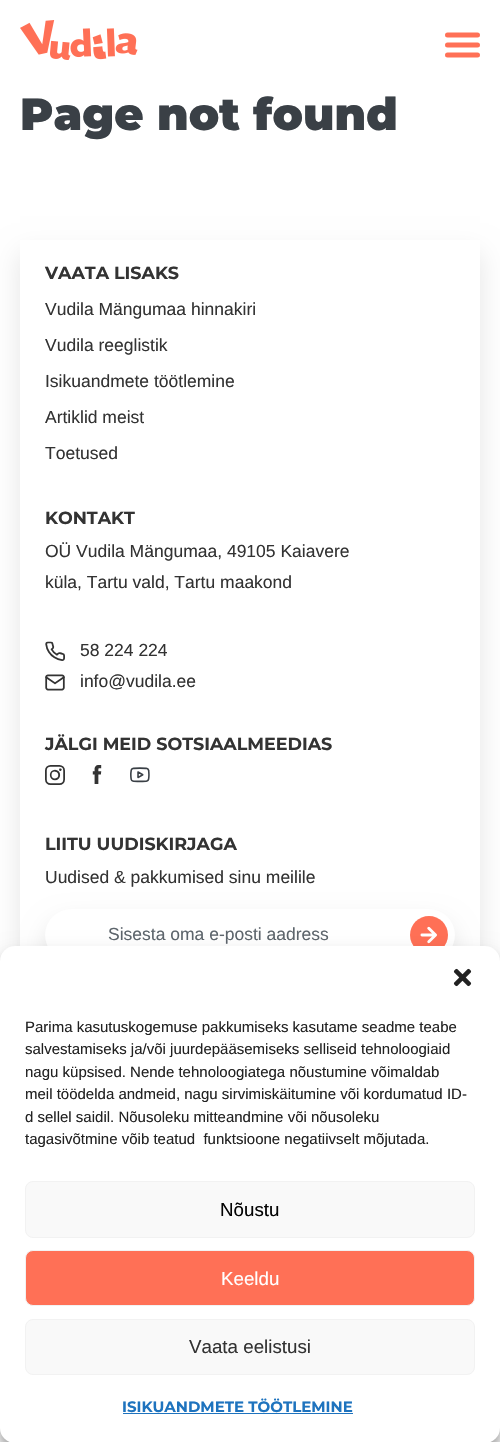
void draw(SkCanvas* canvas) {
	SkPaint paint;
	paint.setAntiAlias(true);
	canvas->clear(0xffffffff);
	canvas->drawImageRect(SkImages::DeferredFromEncodedData(SkData::MakeFromFileName("img1.png")), SkRect::MakeXYWH(20, 20, 118, 40), SkSamplingOptions());
	canvas->drawImageRect(SkImages::DeferredFromEncodedData(SkData::MakeFromFileName("img2.png")), SkRect::MakeXYWH(445, 32, 35, 26), SkSamplingOptions());
	SkFont f1(fontMgr->matchFamilyStyle("Montserrat", SkFontStyle(900, SkFontStyle::kNormal_Width, SkFontStyle::kUpright_Slant)), 45);
	f1.setSubpixel(true);
	paint.setColor(0xff3a4046);
	canvas->drawString("Page not found", 20, 130, f1, paint);
	paint.setColor(0x1a000000);
	paint.setMaskFilter(SkMaskFilter::MakeBlur(kNormal_SkBlurStyle, 12.5));
	canvas->drawRect(SkRect::MakeXYWH(20, 253, 460, 845), paint);
	paint.setMaskFilter(nullptr);
	paint.setColor(0xffffffff);
	canvas->drawRect(SkRect::MakeXYWH(20, 240, 460, 706), paint);
	SkFont f2(fontMgr->matchFamilyStyle("Montserrat", SkFontStyle::Bold()), 17.5);
	f2.setSubpixel(true);
	paint.setColor(0xff333333);
	canvas->drawString("VAATA LISAKS", 45, 279, f2, paint);
	SkFont f3(fontMgr->matchFamilyStyle("Liberation Sans", SkFontStyle::Normal()), 17.5);
	f3.setSubpixel(true);
	canvas->drawString("Vudila Mängumaa hinnakiri", 45, 315, f3, paint);
	canvas->drawString("Vudila reeglistik", 45, 351, f3, paint);
	canvas->drawString("Isikuandmete töötlemine", 45, 387, f3, paint);
	canvas->drawString("Artiklid meist", 45, 423, f3, paint);
	canvas->drawString("Toetused", 45, 459, f3, paint);
	canvas->drawString("KONTAKT", 45, 524, f2, paint);
	canvas->drawString("OÜ Vudila Mängumaa, 49105 Kaiavere", 45, 557, f3, paint);
	canvas->drawString("küla, Tartu vald, Tartu maakond", 45, 588, f3, paint);
	canvas->drawImageRect(SkImages::DeferredFromEncodedData(SkData::MakeFromFileName("img3.png")), SkRect::MakeXYWH(45, 641, 20, 20), SkSamplingOptions());
	canvas->drawString("58 224 224", 80, 656, f3, paint);
	canvas->drawImageRect(SkImages::DeferredFromEncodedData(SkData::MakeFromFileName("img4.png")), SkRect::MakeXYWH(45, 674, 20, 17), SkSamplingOptions());
	canvas->drawString("info@vudila.ee", 80, 687, f3, paint);
	canvas->drawString("JÄLGI MEID SOTSIAALMEEDIAS", 45, 750, f2, paint);
	canvas->drawImageRect(SkImages::DeferredFromEncodedData(SkData::MakeFromFileName("img5.png")), SkRect::MakeXYWH(45, 765, 20, 20), SkSamplingOptions());
	canvas->drawImageRect(SkImages::DeferredFromEncodedData(SkData::MakeFromFileName("img6.png")), SkRect::MakeXYWH(92, 765, 10, 19), SkSamplingOptions());
	canvas->drawImageRect(SkImages::DeferredFromEncodedData(SkData::MakeFromFileName("img7.png")), SkRect::MakeXYWH(130, 767, 20, 16), SkSamplingOptions());
	canvas->drawString("LIITU UUDISKIRJAGA", 45, 850, f2, paint);
	canvas->drawString("Uudised & pakkumised sinu meilile", 45, 883, f3, paint);
	paint.setColor(0x1a000000);
	paint.setMaskFilter(SkMaskFilter::MakeBlur(kNormal_SkBlurStyle, 12.5));
	canvas->drawRoundRect(SkRect::MakeXYWH(45, 921, 410, 53), 26.5, 26.5, paint);
	paint.setMaskFilter(nullptr);
	paint.setColor(0xffffffff);
	canvas->drawRoundRect(SkRect::MakeXYWH(45, 909, 410, 52), 26, 26, paint);
	paint.setColor(0xff5d656c);
	canvas->drawString("Sisesta oma e-posti aadress", 108, 940, f3, paint);
	paint.setColor(0xffff7056);
	canvas->drawCircle(429, 935, 19, paint);
	canvas->drawImageRect(SkImages::DeferredFromEncodedData(SkData::MakeFromFileName("img8.png")), SkRect::MakeXYWH(420, 926, 17, 18), SkSamplingOptions());
	paint.setColor(0x3b000000);
	paint.setMaskFilter(SkMaskFilter::MakeBlur(kNormal_SkBlurStyle, 4));
	canvas->drawRoundRect(SkRect::MakeXYWH(0, 954, 500, 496), 15, 15, paint);
	paint.setMaskFilter(nullptr);
	paint.setColor(0x30000000);
	paint.setMaskFilter(SkMaskFilter::MakeBlur(kNormal_SkBlurStyle, 12.5));
	canvas->drawRoundRect(SkRect::MakeXYWH(0, 959, 500, 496), 15, 15, paint);
	paint.setMaskFilter(nullptr);
	paint.setColor(0xffffffff);
	canvas->drawRoundRect(SkRect::MakeXYWH(0, 946, 500, 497), 15, 15, paint);
	canvas->drawImageRect(SkImages::DeferredFromEncodedData(SkData::MakeFromFileName("img9.png")), SkRect::MakeXYWH(453, 968, 19, 19), SkSamplingOptions());
	SkFont f4(fontMgr->matchFamilyStyle("Liberation Sans", SkFontStyle::Normal()), 15);
	f4.setSubpixel(true);
	paint.setColor(0xff222222);
	canvas->drawString("Parima kasutuskogemuse pakkumiseks kasutame seadme teabe", 25, 1032, f4, paint);
	canvas->drawString("salvestamiseks ja/või juurdepääsemiseks selliseid tehnoloogiaid", 25, 1054, f4, paint);
	canvas->drawString("nagu küpsised. Nende tehnoloogiatega nõustumine võimaldab", 25, 1077, f4, paint);
	canvas->drawString("meil töödelda andmeid, nagu sirvimiskäitumine või kordumatud ID-", 25, 1099, f4, paint);
	canvas->drawString("d sellel saidil. Nõusoleku mitteandmine või nõusoleku", 25, 1122, f4, paint);
	canvas->drawString("tagasivõtmine võib teatud  funktsioone negatiivselt mõjutada.", 25, 1144, f4, paint);
	paint.setColor(0xfff9f9f9);
	canvas->drawRoundRect(SkRect::MakeXYWH(25.5, 1181.5, 449, 56), 7.5, 7.5, paint);
	paint.setStroke(true);
	paint.setStrokeWidth(1);
	paint.setColor(0xfff2f2f2);
	canvas->drawRoundRect(SkRect::MakeXYWH(25.5, 1181.5, 449, 56), 7.5, 7.5, paint);
	SkFont f5(fontMgr->matchFamilyStyle("Liberation Sans", SkFontStyle::Normal()), 18.75);
	f5.setSubpixel(true);
	paint.setStroke(false);
	paint.setColor(0xff040404);
	canvas->drawString("Nõustu", 220, 1216, f5, paint);
	paint.setColor(0xffff7056);
	canvas->drawRoundRect(SkRect::MakeXYWH(25.5, 1250.5, 449, 55), 7.5, 7.5, paint);
	paint.setStroke(true);
	paint.setColor(0xfff2f2f2);
	canvas->drawRoundRect(SkRect::MakeXYWH(25.5, 1250.5, 449, 55), 7.5, 7.5, paint);
	paint.setStroke(false);
	paint.setColor(0xffffffff);
	canvas->drawString("Keeldu", 221, 1285, f5, paint);
	paint.setColor(0xfff9f9f9);
	canvas->drawRoundRect(SkRect::MakeXYWH(25.5, 1319.5, 449, 55), 7.5, 7.5, paint);
	paint.setStroke(true);
	paint.setColor(0xfff2f2f2);
	canvas->drawRoundRect(SkRect::MakeXYWH(25.5, 1319.5, 449, 55), 7.5, 7.5, paint);
	paint.setStroke(false);
	paint.setColor(0xff333333);
	canvas->drawString("Vaata eelistusi", 189, 1353, f5, paint);
	SkFont f6(fontMgr->matchFamilyStyle("Montserrat", SkFontStyle::Bold()), 15);
	f6.setSubpixel(true);
	paint.setColor(0xff1e73be);
	canvas->drawString("ISIKUANDMETE TÖÖTLEMINE", 122, 1412, f6, paint);
	canvas->drawRect(SkRect::MakeXYWH(123, 1413, 230, 1), paint);
}
